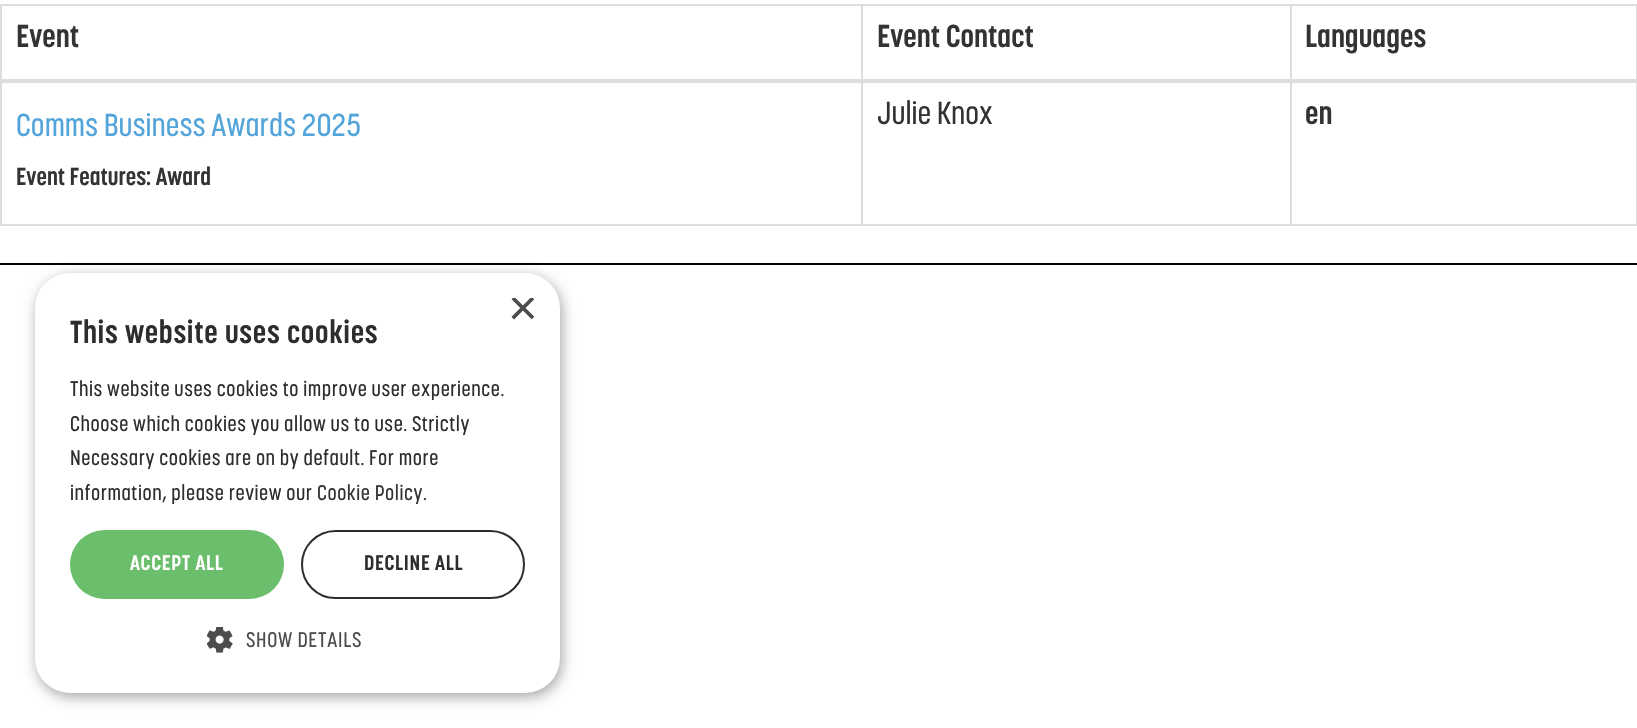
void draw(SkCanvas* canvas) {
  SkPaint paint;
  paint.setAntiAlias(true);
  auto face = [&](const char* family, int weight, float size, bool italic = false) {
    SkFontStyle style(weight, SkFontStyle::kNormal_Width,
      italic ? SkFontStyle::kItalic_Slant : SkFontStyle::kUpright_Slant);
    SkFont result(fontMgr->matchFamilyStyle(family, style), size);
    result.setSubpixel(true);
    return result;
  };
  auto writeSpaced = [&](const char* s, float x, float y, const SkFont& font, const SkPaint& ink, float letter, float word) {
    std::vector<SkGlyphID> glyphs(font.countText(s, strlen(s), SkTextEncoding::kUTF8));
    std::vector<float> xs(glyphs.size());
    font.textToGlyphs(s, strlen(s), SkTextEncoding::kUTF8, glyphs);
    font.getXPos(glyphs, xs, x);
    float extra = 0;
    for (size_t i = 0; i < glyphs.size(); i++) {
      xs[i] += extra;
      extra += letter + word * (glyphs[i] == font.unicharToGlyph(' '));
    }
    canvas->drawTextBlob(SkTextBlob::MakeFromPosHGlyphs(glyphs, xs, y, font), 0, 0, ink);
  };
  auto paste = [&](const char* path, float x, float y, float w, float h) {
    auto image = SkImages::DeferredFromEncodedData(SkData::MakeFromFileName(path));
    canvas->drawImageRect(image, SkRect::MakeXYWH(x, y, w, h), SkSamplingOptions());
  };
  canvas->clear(0xffffffff);
  {
    const struct { float x, y, w, h; SkColor color; } items[] = {
      {0, 4, 1637, 2, 0xffdddddd},
      {1636, 4, 1, 222, 0xffdddddd},
      {0, 224, 1637, 2, 0xffdddddd},
      {0, 4, 2, 222, 0xffdddddd},
      {861, 4, 2, 222, 0xffdddddd},
      {1290, 4, 2, 222, 0xffdddddd},
      {0, 79, 1637, 4, 0xffdddddd},
      {0, 263, 1637, 2, 0xff000000},
    };
    for (auto [x, y, w, h, color] : items) {
      paint.setColor(color);
      canvas->drawRect(SkRect::MakeXYWH(x, y, w, h), paint);
    }
  }
  paint.setColor(0x59000000);
  paint.setMaskFilter(SkMaskFilter::MakeBlur(kNormal_SkBlurStyle, 7));
  canvas->drawRoundRect(SkRect::MakeXYWH(37, 277, 525, 420), 35, 35, paint);
  paint.setMaskFilter(nullptr);
  paint.setColor(0xffffffff);
  canvas->drawRoundRect(SkRect::MakeXYWH(35, 273, 525, 420), 35, 35, paint);
  paint.setColor(0xff6bbe6b);
  canvas->drawRoundRect(SkRect::MakeXYWH(70, 530, 214, 69), 34.5f, 34.5f, paint);
  paint.setStroke(true);
  paint.setStrokeWidth(2);
  paint.setColor(0xff2d2d2d);
  canvas->drawRoundRect(SkRect::MakeXYWH(302, 531, 222, 67), 33.5f, 33.5f, paint);
  paste("img/1.png", 207, 627, 26, 26);
  auto f0 = face("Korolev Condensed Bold", 700, 31.5f);
  paint.setStroke(false);
  paint.setColor(0xff333333);
  {
    const struct { const char* s; float x, y; } items[] = {
      {"Event", 16, 47},
      {"Event Contact", 877, 47},
      {"Languages", 1305, 47},
    };
    for (auto [s, x, y] : items) {
      canvas->drawString(s, x, y, f0, paint);
    }
  }
  auto f1 = face("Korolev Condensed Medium", 500, 31.5f);
  paint.setColor(0xff52a4da);
  canvas->drawString("Comms Business Awards 2025", 16, 136, f1, paint);
  auto f2 = face("Korolev Condensed Bold", 700, 24.5f);
  paint.setColor(0xff333333);
  canvas->drawString("Event Features: Award", 16, 185, f2, paint);
  canvas->drawString("Julie Knox", 877, 124, f1, paint);
  canvas->drawString("en", 1305, 124, f0, paint);
  canvas->save();
  canvas->clipRect(SkRect::MakeXYWH(508, 298, 26, 26));
  auto f3 = face("Liberation Sans", 400, 51);
  paint.setColor(0xff4d4d4d);
  canvas->drawString("×", 508, 325, f3, paint);
  canvas->restore();
  paint.setColor(0xff2d2d2d);
  writeSpaced("This website uses cookies", 70, 343, f0, paint, 0.7f, 0);
  auto f4 = face("Korolev Condensed Medium", 500, 21);
  {
    const struct { const char* s; float x, y; } items[] = {
      {"This website uses cookies to improve user experience.", 70, 396},
      {"Choose which cookies you allow us to use. Strictly", 70, 431},
      {"Necessary cookies are on by default. For more", 70, 465},
      {"information, please review our", 70, 500},
    };
    for (auto [s, x, y] : items) {
      writeSpaced(s, x, y, f4, paint, 0.53f, 0);
    }
  }
  paint.setColor(0xff333333);
  writeSpaced("Cookie Policy.", 317, 500, f4, paint, 0.53f, 0);
  auto f5 = face("Korolev Condensed Bold", 700, 21);
  paint.setColor(0xffffffff);
  writeSpaced("ACCEPT ALL", 130, 570, f5, paint, 0.7f, 0);
  paint.setColor(0xff2d2d2d);
  writeSpaced("DECLINE ALL", 364, 570, f5, paint, 0.7f, 0);
  paint.setColor(0xff4d4d4d);
  writeSpaced("SHOW DETAILS", 246, 647, f4, paint, 0.7f, 0);
}
